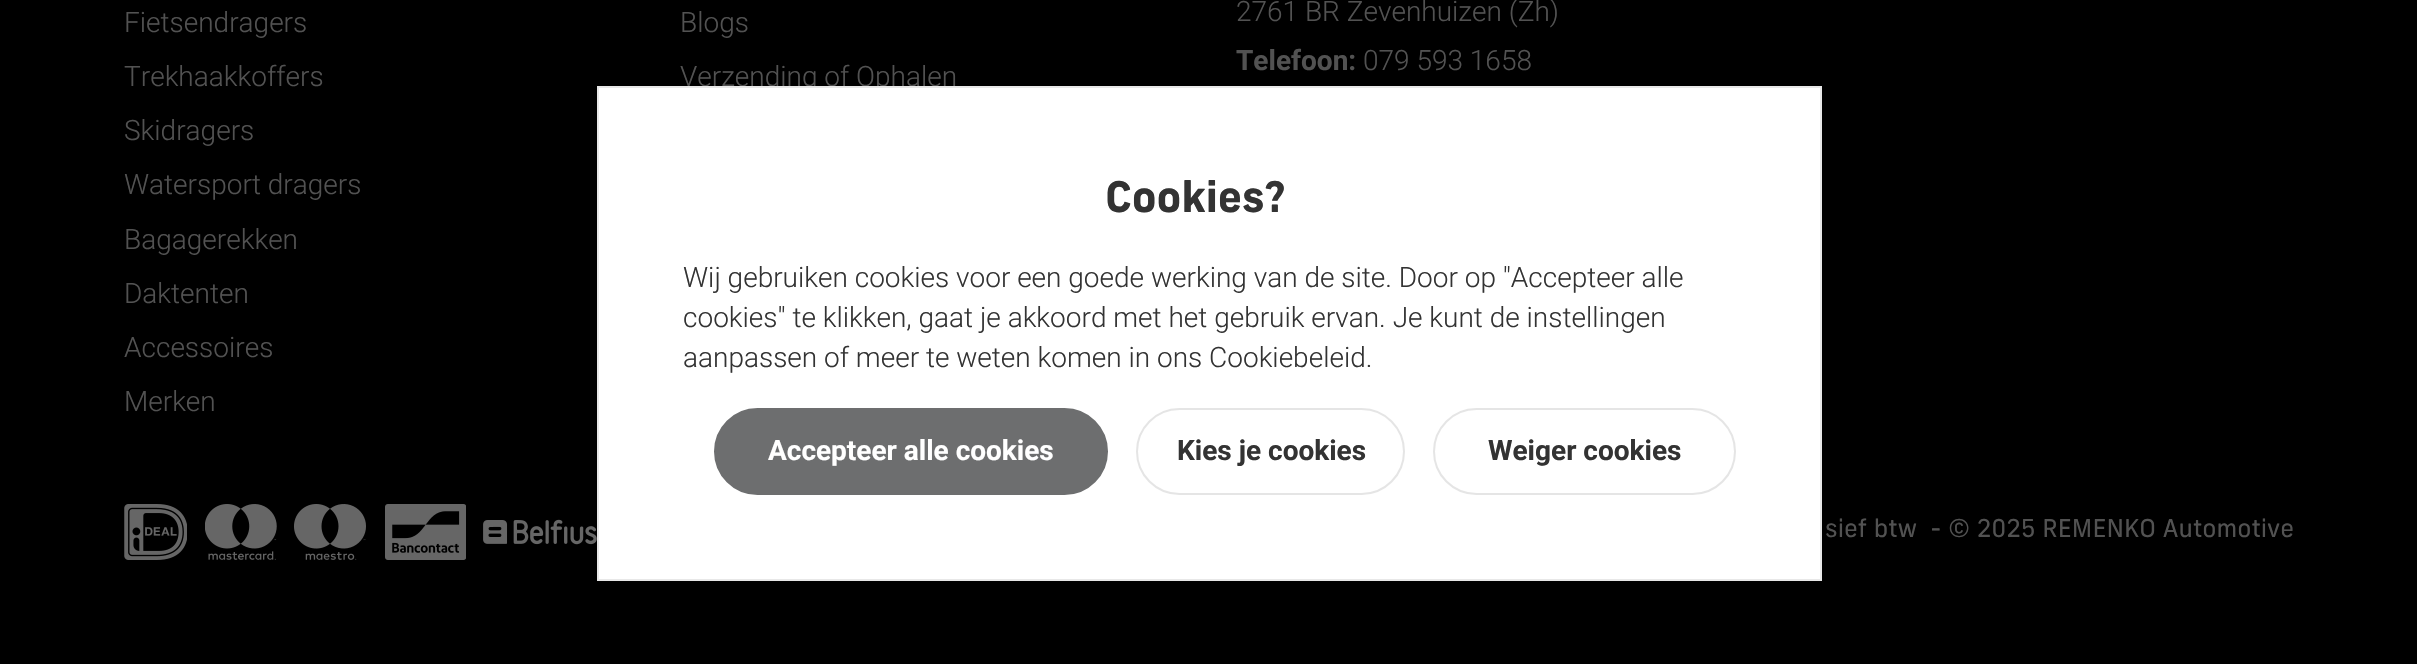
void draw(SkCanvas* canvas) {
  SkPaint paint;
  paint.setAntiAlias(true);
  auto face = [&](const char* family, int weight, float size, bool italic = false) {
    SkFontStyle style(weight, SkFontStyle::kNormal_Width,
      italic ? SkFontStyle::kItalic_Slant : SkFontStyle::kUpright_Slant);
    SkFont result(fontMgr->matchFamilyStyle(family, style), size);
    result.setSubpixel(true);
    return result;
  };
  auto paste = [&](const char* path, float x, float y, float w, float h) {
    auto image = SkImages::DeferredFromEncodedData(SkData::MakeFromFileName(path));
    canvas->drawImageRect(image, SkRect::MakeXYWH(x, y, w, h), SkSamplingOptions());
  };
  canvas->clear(0xff000000);
  paste("img/1.png", 124, 504, 63, 56);
  paste("img/2.png", 205, 504, 72, 56);
  paste("img/3.png", 294, 504, 72, 56);
  paste("img/4.png", 385, 504, 81, 56);
  paste("img/5.png", 483, 519, 114, 26);
  auto f0 = face("Roboto", 300, 28);
  paint.setColor(0xff525252);
  {
    const struct { const char* s; float x, y; } items[] = {
      {"Fietsendragers", 124, 32},
      {"Trekhaakkoffers", 124, 86},
      {"Skidragers", 124, 140},
      {"Watersport dragers", 124, 194},
      {"Bagagerekken", 124, 249},
      {"Daktenten", 124, 303},
      {"Accessoires", 124, 357},
      {"Merken", 124, 411},
      {"Blogs", 680, 32},
      {"Verzending of Ophalen", 680, 86},
      {"2761 BR Zevenhuizen (Zh)", 1236, 21},
    };
    for (auto [s, x, y] : items) {
      canvas->drawString(s, x, y, f0, paint);
    }
  }
  auto f1 = face("Roboto", 700, 28);
  canvas->drawString("Telefoon:", 1236, 70, f1, paint);
  canvas->drawString("079 593 1658", 1363, 70, f0, paint);
  auto f2 = face("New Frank", 400, 24.5f);
  canvas->drawString("sief btw", 1825, 537, f2, paint);
  canvas->drawString("- © 2025 REMENKO Automotive", 1930, 537, f2, paint);
  paint.setColor(0xffffffff);
  canvas->drawRect(SkRect::MakeXYWH(598, 87, 1223, 493), paint);
  paint.setStroke(true);
  paint.setStrokeWidth(2);
  paint.setColor(0xffe8e8e8);
  canvas->drawRect(SkRect::MakeXYWH(598, 87, 1223, 493), paint);
  auto f3 = face("New Frank", 700, 42);
  paint.setStroke(false);
  paint.setColor(0xff333333);
  canvas->drawString("Cookies?", 1105, 212, f3, paint);
  {
    const struct { const char* s; float x, y; } items[] = {
      {"Wij gebruiken cookies voor een goede werking van de site. Door op \"Accepteer alle", 683, 287},
      {"cookies\" te klikken, gaat je akkoord met het gebruik ervan. Je kunt de instellingen", 683, 327},
      {"aanpassen of meer te weten komen in ons Cookiebeleid.", 683, 367},
    };
    for (auto [s, x, y] : items) {
      canvas->drawString(s, x, y, f0, paint);
    }
  }
  paint.setColor(0xff6d6e6f);
  canvas->drawRoundRect(SkRect::MakeXYWH(715, 409, 392, 85), 42.5f, 42.5f, paint);
  paint.setStroke(true);
  canvas->drawRoundRect(SkRect::MakeXYWH(715, 409, 392, 85), 42.5f, 42.5f, paint);
  paint.setStroke(false);
  paint.setColor(0xffffffff);
  canvas->drawString("Accepteer alle cookies", 768, 460, f1, paint);
  paint.setStroke(true);
  paint.setColor(0xffe5e5e5);
  canvas->drawRoundRect(SkRect::MakeXYWH(1137, 409, 267, 85), 42.5f, 42.5f, paint);
  paint.setStroke(false);
  paint.setColor(0xff333333);
  canvas->drawString("Kies je cookies", 1177, 460, f1, paint);
  paint.setStroke(true);
  paint.setColor(0xffe5e5e5);
  canvas->drawRoundRect(SkRect::MakeXYWH(1434, 409, 301, 85), 42.5f, 42.5f, paint);
  paint.setStroke(false);
  paint.setColor(0xff333333);
  canvas->drawString("Weiger cookies", 1488, 460, f1, paint);
}
